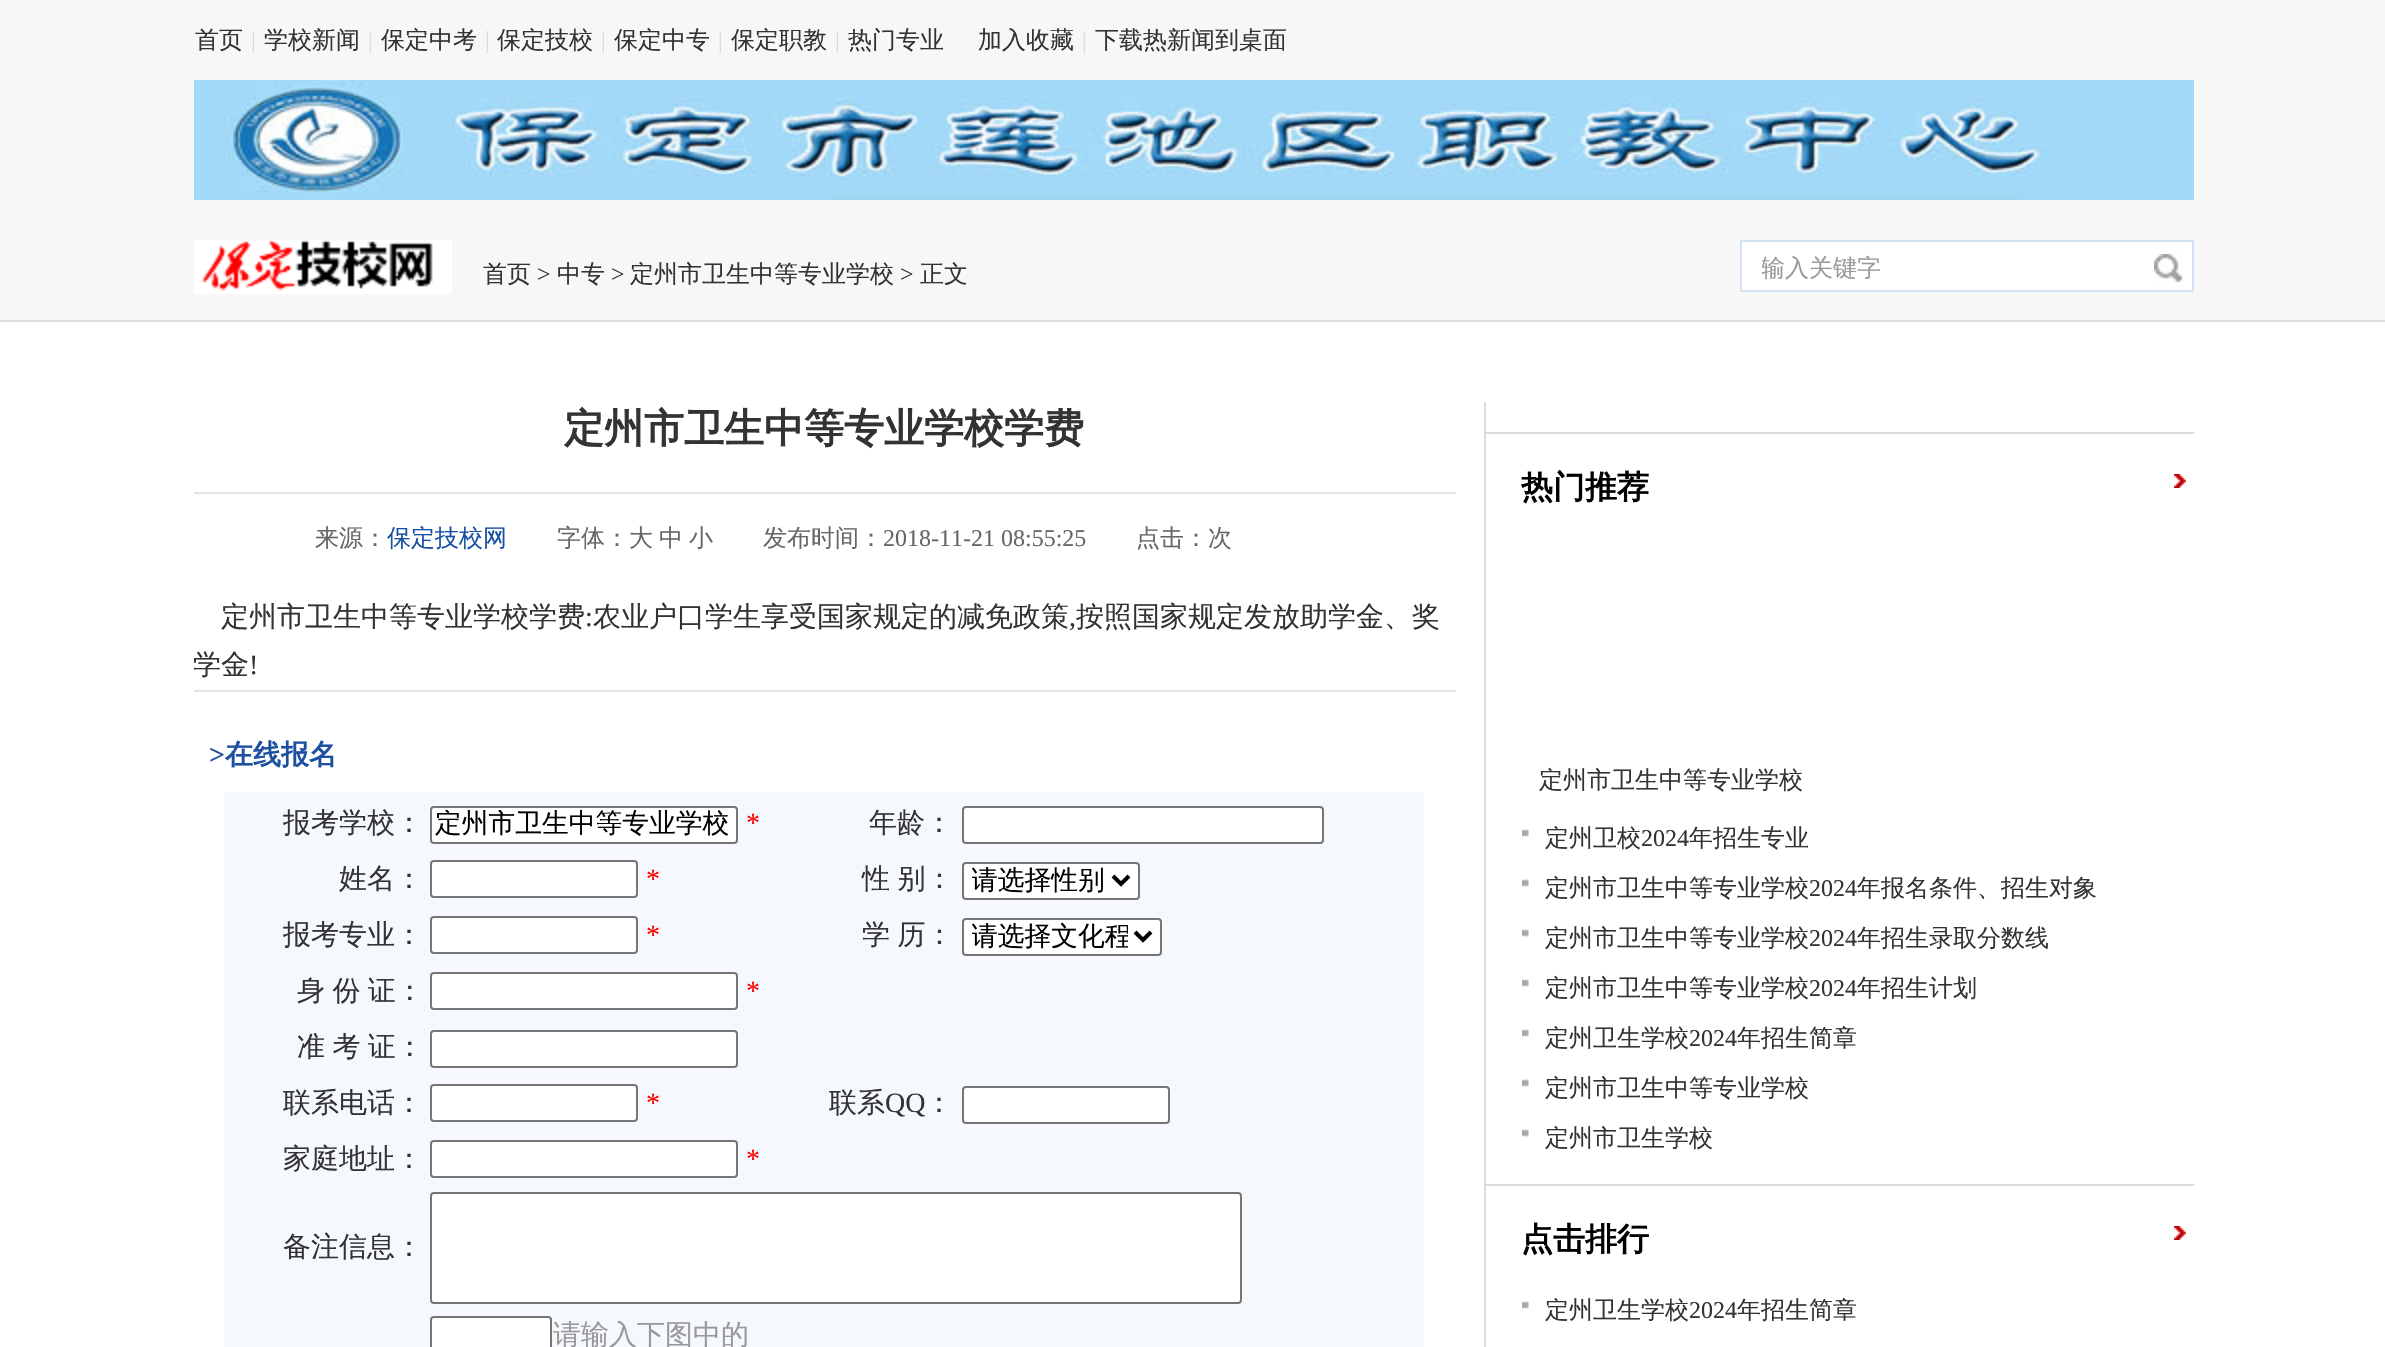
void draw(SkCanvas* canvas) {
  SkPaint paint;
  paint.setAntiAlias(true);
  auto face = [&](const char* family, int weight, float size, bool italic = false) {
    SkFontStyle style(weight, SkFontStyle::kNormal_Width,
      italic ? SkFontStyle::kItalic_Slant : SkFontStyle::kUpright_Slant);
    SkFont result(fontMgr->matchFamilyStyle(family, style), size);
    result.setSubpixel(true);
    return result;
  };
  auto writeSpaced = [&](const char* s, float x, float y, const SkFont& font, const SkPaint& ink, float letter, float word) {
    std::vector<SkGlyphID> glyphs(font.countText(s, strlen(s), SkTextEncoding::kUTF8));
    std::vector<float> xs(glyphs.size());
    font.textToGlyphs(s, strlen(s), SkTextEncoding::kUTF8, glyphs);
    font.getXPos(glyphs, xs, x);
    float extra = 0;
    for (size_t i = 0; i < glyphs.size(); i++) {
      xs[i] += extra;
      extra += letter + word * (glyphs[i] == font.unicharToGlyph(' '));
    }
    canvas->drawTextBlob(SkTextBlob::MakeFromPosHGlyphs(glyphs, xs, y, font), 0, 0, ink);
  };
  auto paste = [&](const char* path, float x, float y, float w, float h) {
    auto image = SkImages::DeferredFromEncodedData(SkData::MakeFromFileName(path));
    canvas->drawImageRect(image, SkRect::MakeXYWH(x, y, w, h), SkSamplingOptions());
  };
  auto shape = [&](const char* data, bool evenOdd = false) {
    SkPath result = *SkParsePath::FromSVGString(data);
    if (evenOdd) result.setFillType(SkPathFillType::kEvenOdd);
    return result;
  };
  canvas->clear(0xffffffff);
  paint.setColor(0xfff7f7f7);
  canvas->drawRect(SkRect::MakeXYWH(0, 0, 2385, 320), paint);
  paint.setColor(0xffdcdcdc);
  canvas->drawRect(SkRect::MakeXYWH(0, 320, 2385, 2), paint);
  paste("img/1.png", 194, 80, 2000, 120);
  paste("img/2.png", 194, 240, 258, 54);
  paint.setColor(0xffffffff);
  canvas->drawRect(SkRect::MakeXYWH(1741, 241, 452, 50), paint);
  paint.setStroke(true);
  paint.setStrokeWidth(2);
  paint.setColor(0xffd5e2f3);
  canvas->drawRect(SkRect::MakeXYWH(1741, 241, 452, 50), paint);
  paste("img/3.png", 2154, 254, 28, 28);
  paint.setStroke(false);
  {
    const struct { float x, y, w, h; SkColor color; } items[] = {
      {1484, 402, 2, 945, 0xffdcdcdc},
      {194, 492, 1262, 2, 0xffe4e4e4},
      {194, 690, 1262, 2, 0xffe4e4e4},
      {224, 792, 1200, 555, 0xfff5f8fd},
    };
    for (auto [x, y, w, h, color] : items) {
      paint.setColor(color);
      canvas->drawRect(SkRect::MakeXYWH(x, y, w, h), paint);
    }
  }
  paint.setColor(0xffffffff);
  canvas->drawRoundRect(SkRect::MakeXYWH(431, 807, 306, 36), 3, 3, paint);
  paint.setStroke(true);
  paint.setColor(0xff767676);
  canvas->drawRoundRect(SkRect::MakeXYWH(431, 807, 306, 36), 3, 3, paint);
  paint.setStroke(false);
  paint.setColor(0xffffffff);
  canvas->drawRoundRect(SkRect::MakeXYWH(963, 807, 360, 36), 3, 3, paint);
  paint.setStroke(true);
  paint.setColor(0xff767676);
  canvas->drawRoundRect(SkRect::MakeXYWH(963, 807, 360, 36), 3, 3, paint);
  paint.setStroke(false);
  paint.setColor(0xffffffff);
  canvas->drawRoundRect(SkRect::MakeXYWH(431, 861, 206, 36), 3, 3, paint);
  paint.setStroke(true);
  paint.setColor(0xff767676);
  canvas->drawRoundRect(SkRect::MakeXYWH(431, 861, 206, 36), 3, 3, paint);
  paint.setStroke(false);
  paint.setColor(0xffffffff);
  canvas->drawRoundRect(SkRect::MakeXYWH(963, 863, 176, 36), 3, 3, paint);
  paint.setStroke(true);
  paint.setColor(0xff767676);
  canvas->drawRoundRect(SkRect::MakeXYWH(963, 863, 176, 36), 3, 3, paint);
  paint.setStrokeWidth(4);
  paint.setColor(0xff000000);
  canvas->drawPath(shape("M1113 876L1121 884L1129 876"), paint);
  paint.setStroke(false);
  paint.setColor(0xffffffff);
  canvas->drawRoundRect(SkRect::MakeXYWH(431, 917, 206, 36), 3, 3, paint);
  paint.setStroke(true);
  paint.setStrokeWidth(2);
  paint.setColor(0xff767676);
  canvas->drawRoundRect(SkRect::MakeXYWH(431, 917, 206, 36), 3, 3, paint);
  paint.setStroke(false);
  paint.setColor(0xffffffff);
  canvas->drawRoundRect(SkRect::MakeXYWH(963, 919, 198, 36), 3, 3, paint);
  paint.setStroke(true);
  paint.setColor(0xff767676);
  canvas->drawRoundRect(SkRect::MakeXYWH(963, 919, 198, 36), 3, 3, paint);
  paint.setStrokeWidth(4);
  paint.setColor(0xff000000);
  canvas->drawPath(shape("M1135 932L1143 940L1151 932"), paint);
  paint.setStroke(false);
  paint.setColor(0xffffffff);
  canvas->drawRoundRect(SkRect::MakeXYWH(431, 973, 306, 36), 3, 3, paint);
  paint.setStroke(true);
  paint.setStrokeWidth(2);
  paint.setColor(0xff767676);
  canvas->drawRoundRect(SkRect::MakeXYWH(431, 973, 306, 36), 3, 3, paint);
  paint.setStroke(false);
  paint.setColor(0xffffffff);
  canvas->drawRoundRect(SkRect::MakeXYWH(431, 1031, 306, 36), 3, 3, paint);
  paint.setStroke(true);
  paint.setColor(0xff767676);
  canvas->drawRoundRect(SkRect::MakeXYWH(431, 1031, 306, 36), 3, 3, paint);
  paint.setStroke(false);
  paint.setColor(0xffffffff);
  canvas->drawRoundRect(SkRect::MakeXYWH(431, 1085, 206, 36), 3, 3, paint);
  paint.setStroke(true);
  paint.setColor(0xff767676);
  canvas->drawRoundRect(SkRect::MakeXYWH(431, 1085, 206, 36), 3, 3, paint);
  paint.setStroke(false);
  paint.setColor(0xffffffff);
  canvas->drawRoundRect(SkRect::MakeXYWH(963, 1087, 206, 36), 3, 3, paint);
  paint.setStroke(true);
  paint.setColor(0xff767676);
  canvas->drawRoundRect(SkRect::MakeXYWH(963, 1087, 206, 36), 3, 3, paint);
  paint.setStroke(false);
  paint.setColor(0xffffffff);
  canvas->drawRoundRect(SkRect::MakeXYWH(431, 1141, 306, 36), 3, 3, paint);
  paint.setStroke(true);
  paint.setColor(0xff767676);
  canvas->drawRoundRect(SkRect::MakeXYWH(431, 1141, 306, 36), 3, 3, paint);
  paint.setStroke(false);
  paint.setColor(0xffffffff);
  canvas->drawRoundRect(SkRect::MakeXYWH(431, 1193, 810, 110), 3, 3, paint);
  paint.setStroke(true);
  paint.setColor(0xff767676);
  canvas->drawRoundRect(SkRect::MakeXYWH(431, 1193, 810, 110), 3, 3, paint);
  paint.setStroke(false);
  paint.setColor(0xffffffff);
  canvas->drawRoundRect(SkRect::MakeXYWH(431, 1317, 120, 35), 3, 3, paint);
  paint.setStroke(true);
  paint.setColor(0xff767676);
  canvas->drawRoundRect(SkRect::MakeXYWH(431, 1317, 120, 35), 3, 3, paint);
  paint.setStroke(false);
  paint.setColor(0xffdbdbdb);
  canvas->drawRect(SkRect::MakeXYWH(1486, 432, 708, 2), paint);
  paste("img/4.png", 2174, 474, 12, 14);
  paste("img/5.png", 1522, 829, 7, 8);
  paste("img/5.png", 1522, 879, 7, 8);
  paste("img/5.png", 1522, 929, 7, 8);
  paste("img/5.png", 1522, 979, 7, 8);
  paste("img/5.png", 1522, 1029, 7, 8);
  paste("img/5.png", 1522, 1079, 7, 8);
  paste("img/5.png", 1522, 1129, 7, 8);
  canvas->drawRect(SkRect::MakeXYWH(1486, 1184, 708, 2), paint);
  paste("img/4.png", 2174, 1226, 12, 14);
  paste("img/5.png", 1522, 1301, 7, 8);
  auto f0 = face("WenQuanYi Zen Hei", 500, 24);
  paint.setColor(0xff333333);
  canvas->drawString("首页", 195, 48, f0, paint);
  auto f1 = face("Liberation Serif", 400, 24);
  paint.setColor(0xffdcdcdc);
  canvas->drawString("|", 251, 48, f1, paint);
  paint.setColor(0xff333333);
  canvas->drawString("学校新闻", 264, 48, f0, paint);
  paint.setColor(0xffdcdcdc);
  canvas->drawString("|", 368, 48, f1, paint);
  paint.setColor(0xff333333);
  canvas->drawString("保定中考", 381, 48, f0, paint);
  paint.setColor(0xffdcdcdc);
  canvas->drawString("|", 485, 48, f1, paint);
  paint.setColor(0xff333333);
  canvas->drawString("保定技校", 497, 48, f0, paint);
  paint.setColor(0xffdcdcdc);
  canvas->drawString("|", 601, 48, f1, paint);
  paint.setColor(0xff333333);
  canvas->drawString("保定中专", 614, 48, f0, paint);
  paint.setColor(0xffdcdcdc);
  canvas->drawString("|", 718, 48, f1, paint);
  paint.setColor(0xff333333);
  canvas->drawString("保定职教", 731, 48, f0, paint);
  paint.setColor(0xffdcdcdc);
  canvas->drawString("|", 835, 48, f1, paint);
  paint.setColor(0xff333333);
  canvas->drawString("热门专业", 848, 48, f0, paint);
  canvas->drawString("加入收藏", 978, 48, f0, paint);
  paint.setColor(0xffdcdcdc);
  canvas->drawString("|", 1082, 48, f1, paint);
  paint.setColor(0xff333333);
  canvas->drawString("下载热新闻到桌面", 1095, 48, f0, paint);
  canvas->drawString("首页", 483, 282, f0, paint);
  canvas->drawString(">", 537, 282, f1, paint);
  canvas->drawString("中专", 557, 282, f0, paint);
  canvas->drawString(">", 611, 282, f1, paint);
  canvas->drawString("定州市卫生中等专业学校", 630, 282, f0, paint);
  canvas->drawString(">", 900, 282, f1, paint);
  canvas->drawString("正文", 920, 282, f0, paint);
  canvas->save();
  canvas->clipRect(SkRect::MakeXYWH(1762, 254, 390, 30));
  paint.setColor(0xff999999);
  canvas->drawString("输入关键字", 1761, 276, f0, paint);
  canvas->restore();
  auto f2 = face("WenQuanYi Zen Hei", 700, 40);
  paint.setColor(0xff333333);
  canvas->drawString("定州市卫生中等专业学校学费", 564, 442, f2, paint);
  paint.setColor(0xff666666);
  canvas->drawString("来源：", 315, 546, f0, paint);
  paint.setColor(0xff174fa2);
  canvas->drawString("保定技校网", 387, 546, f0, paint);
  paint.setColor(0xff666666);
  {
    const struct { const char* s; float x, y; } items[] = {
      {"字体：大", 557, 546},
      {"中", 659, 546},
      {"小", 689, 546},
      {"发布时间：", 763, 546},
    };
    for (auto [s, x, y] : items) {
      canvas->drawString(s, x, y, f0, paint);
    }
  }
  canvas->drawString("2018-11-21 08:55:25", 883, 546, f1, paint);
  canvas->drawString("点击：次", 1136, 546, f0, paint);
  auto f3 = face("WenQuanYi Zen Hei", 500, 28);
  paint.setColor(0xff333333);
  canvas->drawString("定州市卫生中等专业学校学费", 221, 626, f3, paint);
  auto f4 = face("Liberation Serif", 400, 28);
  canvas->drawString(":", 585, 626, f4, paint);
  canvas->drawString("农业户口学生享受国家规定的减免政策", 593, 626, f3, paint);
  canvas->drawString(",", 1069, 626, f4, paint);
  canvas->drawString("按照国家规定发放助学金、奖", 1076, 626, f3, paint);
  canvas->drawString("学金", 193, 674, f3, paint);
  canvas->drawString("!", 249, 674, f4, paint);
  auto f5 = face("Liberation Serif", 700, 28);
  paint.setColor(0xff1e50a2);
  canvas->drawString(">", 209, 764, f5, paint);
  auto f6 = face("WenQuanYi Zen Hei", 700, 28);
  canvas->drawString("在线报名", 225, 764, f6, paint);
  paint.setColor(0xff333333);
  canvas->drawString("报考学校：", 283, 832, f3, paint);
  canvas->save();
  canvas->clipRect(SkRect::MakeXYWH(434, 810, 300, 30));
  auto f7 = face("WenQuanYi Zen Hei", 500, 26.75f);
  paint.setColor(0xff000000);
  canvas->drawString("定州市卫生中等专业学校", 435, 832, f7, paint);
  canvas->restore();
  paint.setColor(0xffff0000);
  canvas->drawString("*", 746, 832, f4, paint);
  paint.setColor(0xff333333);
  canvas->drawString("年龄：", 869, 832, f3, paint);
  canvas->drawString("姓名：", 339, 888, f3, paint);
  paint.setColor(0xffff0000);
  canvas->drawString("*", 646, 888, f4, paint);
  paint.setColor(0xff333333);
  writeSpaced("性 别：", 862, 888, f3, paint, 0, -1);
  canvas->save();
  canvas->clipRect(SkRect::MakeXYWH(972, 864, 134, 34));
  paint.setColor(0xff000000);
  canvas->drawString("请选择性别", 971, 889, f7, paint);
  canvas->restore();
  paint.setColor(0xff333333);
  canvas->drawString("报考专业：", 283, 944, f3, paint);
  paint.setColor(0xffff0000);
  canvas->drawString("*", 646, 944, f4, paint);
  paint.setColor(0xff333333);
  writeSpaced("学 历：", 862, 944, f3, paint, 0, -1);
  canvas->save();
  canvas->clipRect(SkRect::MakeXYWH(972, 920, 156, 34));
  paint.setColor(0xff000000);
  canvas->drawString("请选择文化程", 971, 945, f7, paint);
  canvas->restore();
  paint.setColor(0xff333333);
  writeSpaced("身 份 证：", 297, 1000, f3, paint, 0, -1);
  paint.setColor(0xffff0000);
  canvas->drawString("*", 746, 1000, f4, paint);
  paint.setColor(0xff333333);
  writeSpaced("准 考 证：", 297, 1056, f3, paint, 0, -1);
  canvas->drawString("联系电话：", 283, 1112, f3, paint);
  paint.setColor(0xffff0000);
  canvas->drawString("*", 646, 1112, f4, paint);
  paint.setColor(0xff333333);
  canvas->drawString("联系", 829, 1112, f3, paint);
  canvas->drawString("QQ", 885, 1112, f4, paint);
  canvas->drawString("：", 925, 1112, f3, paint);
  canvas->drawString("家庭地址：", 283, 1168, f3, paint);
  paint.setColor(0xffff0000);
  canvas->drawString("*", 746, 1168, f4, paint);
  paint.setColor(0xff333333);
  canvas->drawString("备注信息：", 283, 1256, f3, paint);
  paint.setColor(0xff999999);
  canvas->drawString("请输入下图中的", 553, 1344, f3, paint);
  auto f8 = face("WenQuanYi Zen Hei", 700, 32);
  paint.setColor(0xff000000);
  canvas->drawString("热门推荐", 1521, 498, f8, paint);
  paint.setColor(0xff333333);
  canvas->drawString("定州市卫生中等专业学校", 1539, 788, f0, paint);
  canvas->drawString("定州卫校", 1545, 846, f0, paint);
  canvas->drawString("2024", 1641, 846, f1, paint);
  canvas->drawString("年招生专业", 1689, 846, f0, paint);
  canvas->drawString("定州市卫生中等专业学校", 1545, 896, f0, paint);
  canvas->drawString("2024", 1809, 896, f1, paint);
  canvas->drawString("年报名条件、招生对象", 1857, 896, f0, paint);
  canvas->drawString("定州市卫生中等专业学校", 1545, 946, f0, paint);
  canvas->drawString("2024", 1809, 946, f1, paint);
  canvas->drawString("年招生录取分数线", 1857, 946, f0, paint);
  canvas->drawString("定州市卫生中等专业学校", 1545, 996, f0, paint);
  canvas->drawString("2024", 1809, 996, f1, paint);
  canvas->drawString("年招生计划", 1857, 996, f0, paint);
  canvas->drawString("定州卫生学校", 1545, 1046, f0, paint);
  canvas->drawString("2024", 1689, 1046, f1, paint);
  {
    const struct { const char* s; float x, y; } items[] = {
      {"年招生简章", 1737, 1046},
      {"定州市卫生中等专业学校", 1545, 1096},
      {"定州市卫生学校", 1545, 1146},
    };
    for (auto [s, x, y] : items) {
      canvas->drawString(s, x, y, f0, paint);
    }
  }
  paint.setColor(0xff000000);
  canvas->drawString("点击排行", 1521, 1250, f8, paint);
  paint.setColor(0xff333333);
  canvas->drawString("定州卫生学校", 1545, 1318, f0, paint);
  canvas->drawString("2024", 1689, 1318, f1, paint);
  canvas->drawString("年招生简章", 1737, 1318, f0, paint);
}
